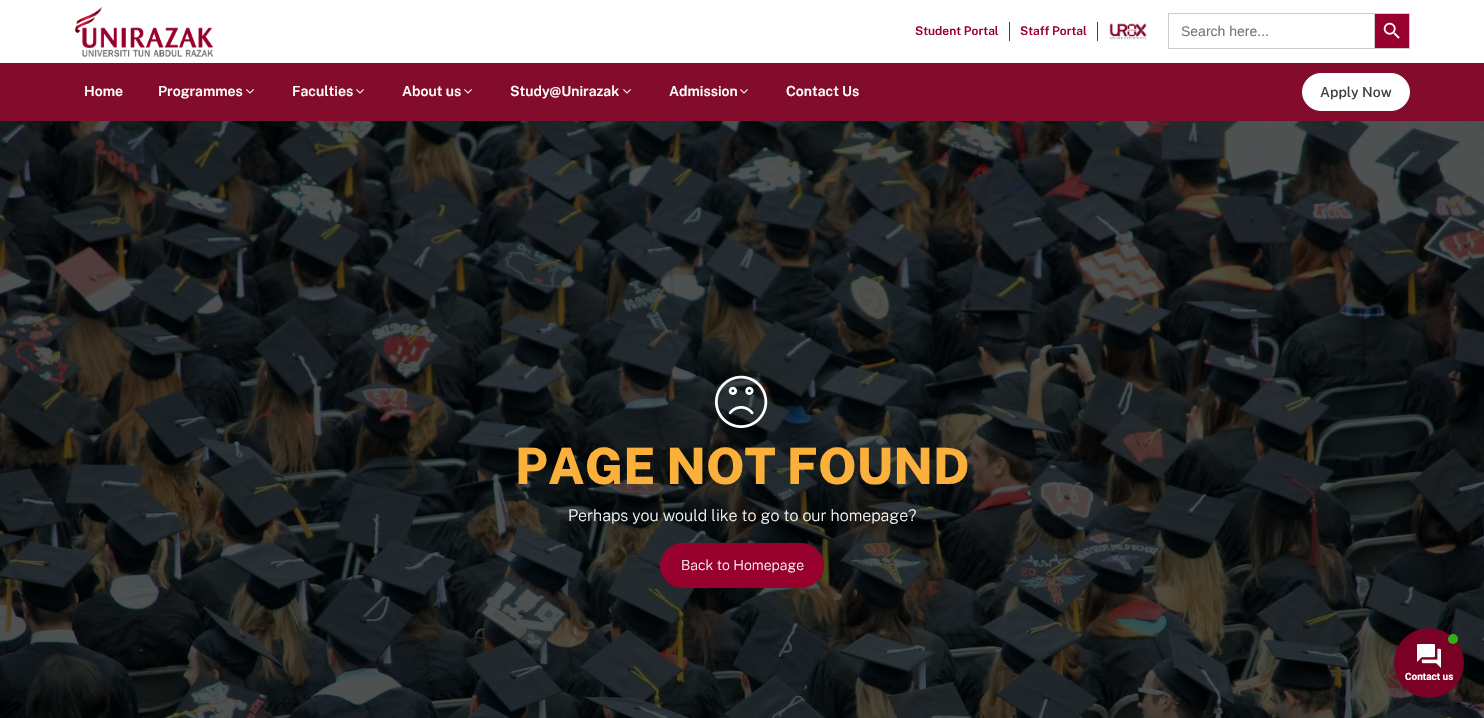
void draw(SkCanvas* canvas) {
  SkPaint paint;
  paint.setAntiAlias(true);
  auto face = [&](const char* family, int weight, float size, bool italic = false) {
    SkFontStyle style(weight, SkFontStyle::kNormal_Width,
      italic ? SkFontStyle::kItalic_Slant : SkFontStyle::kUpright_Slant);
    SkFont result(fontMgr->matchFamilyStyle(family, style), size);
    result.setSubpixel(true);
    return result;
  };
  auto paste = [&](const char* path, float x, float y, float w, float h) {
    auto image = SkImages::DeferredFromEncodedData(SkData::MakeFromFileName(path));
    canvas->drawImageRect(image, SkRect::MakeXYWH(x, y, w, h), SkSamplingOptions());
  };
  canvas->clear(0xffffffff);
  paste("img/1.png", 74, 7, 140, 50);
  paint.setColor(0xff404040);
  canvas->drawRect(SkRect::MakeXYWH(1009, 22, 1, 19), paint);
  canvas->drawRect(SkRect::MakeXYWH(1097, 22, 1, 19), paint);
  paste("img/2.png", 1109, 23, 38, 17);
  {
    const struct { float x, y, w, h; SkColor color; } items[] = {
      {1168, 13, 206, 1, 0xffcccccc},
      {1168, 48, 206, 1, 0xffcccccc},
      {1168, 13, 1, 36, 0xffcccccc},
    };
    for (auto [x, y, w, h, color] : items) {
      paint.setColor(color);
      canvas->drawRect(SkRect::MakeXYWH(x, y, w, h), paint);
    }
  }
  paint.setColor(0xff98002e);
  canvas->drawRect(SkRect::MakeXYWH(1374.5f, 13.5f, 35, 35), paint);
  paint.setStroke(true);
  paint.setStrokeWidth(1);
  paint.setColor(0xffcccccc);
  canvas->drawRect(SkRect::MakeXYWH(1374.5f, 13.5f, 35, 35), paint);
  paste("img/3.png", 1383, 22, 17, 17);
  paint.setStroke(false);
  paint.setColor(0xff830c2c);
  canvas->drawRect(SkRect::MakeXYWH(0, 63, 1484, 58), paint);
  paste("img/4.png", 246, 89, 8, 5);
  paste("img/4.png", 356, 89, 8, 5);
  paste("img/4.png", 464, 89, 8, 5);
  paste("img/4.png", 623, 89, 8, 5);
  paste("img/4.png", 740, 89, 8, 5);
  paint.setColor(0xffffffff);
  canvas->drawRoundRect(SkRect::MakeXYWH(1302.5f, 73.5f, 107, 37), 18.5f, 18.5f, paint);
  paint.setStroke(true);
  canvas->drawRoundRect(SkRect::MakeXYWH(1302.5f, 73.5f, 107, 37), 18.5f, 18.5f, paint);
  paste("img/5.png", 0, 121, 1484, 597);
  paste("img/6.png", 715, 375, 53, 53);
  paint.setStroke(false);
  paint.setColor(0xff98002e);
  canvas->drawRoundRect(SkRect::MakeXYWH(660.5f, 543.5f, 163, 44), 22, 22, paint);
  paint.setStroke(true);
  canvas->drawRoundRect(SkRect::MakeXYWH(660.5f, 543.5f, 163, 44), 22, 22, paint);
  paint.setStroke(false);
  paint.setColor(0xff7b0025);
  canvas->drawCircle(1429, 663, 35, paint);
  paint.setColor(0xff35ac19);
  canvas->drawCircle(1453, 639, 5, paint);
  paste("img/7.png", 1417, 644, 24, 24);
  auto f0 = face("Public Sans", 600, 12);
  paint.setColor(0xff98002e);
  canvas->drawString("Student Portal", 915, 35, f0, paint);
  canvas->drawString("Staff Portal", 1020, 35, f0, paint);
  auto f1 = face("Liberation Sans", 400, 14);
  paint.setColor(0xff757575);
  canvas->drawString("Search here...", 1181, 36, f1, paint);
  auto f2 = face("Public Sans", 600, 14);
  paint.setColor(0xffffffff);
  {
    const struct { const char* s; float x, y; } items[] = {
      {"Home", 84, 96},
      {"Programmes", 158, 96},
      {"Faculties", 292, 96},
      {"About us", 402, 96},
      {"Study@Unirazak", 510, 96},
      {"Admission", 669, 96},
      {"Contact Us", 786, 96},
    };
    for (auto [s, x, y] : items) {
      canvas->drawString(s, x, y, f2, paint);
    }
  }
  auto f3 = face("Public Sans", 500, 14);
  paint.setColor(0xff404040);
  canvas->drawString("Apply Now", 1320, 97, f3, paint);
  auto f4 = face("Public Sans", 800, 50);
  paint.setColor(0xfffbb03b);
  canvas->drawString("PAGE NOT FOUND", 515, 484, f4, paint);
  auto f5 = face("Public Sans", 200, 16);
  paint.setColor(0xffffffff);
  canvas->drawString("Perhaps you would like to go to our homepage?", 568, 521, f5, paint);
  auto f6 = face("Public Sans", 200, 14);
  canvas->drawString("Back to Homepage", 681, 570, f6, paint);
  auto f7 = face("Roboto", 700, 10);
  canvas->drawString("Contact us", 1405, 680, f7, paint);
}
